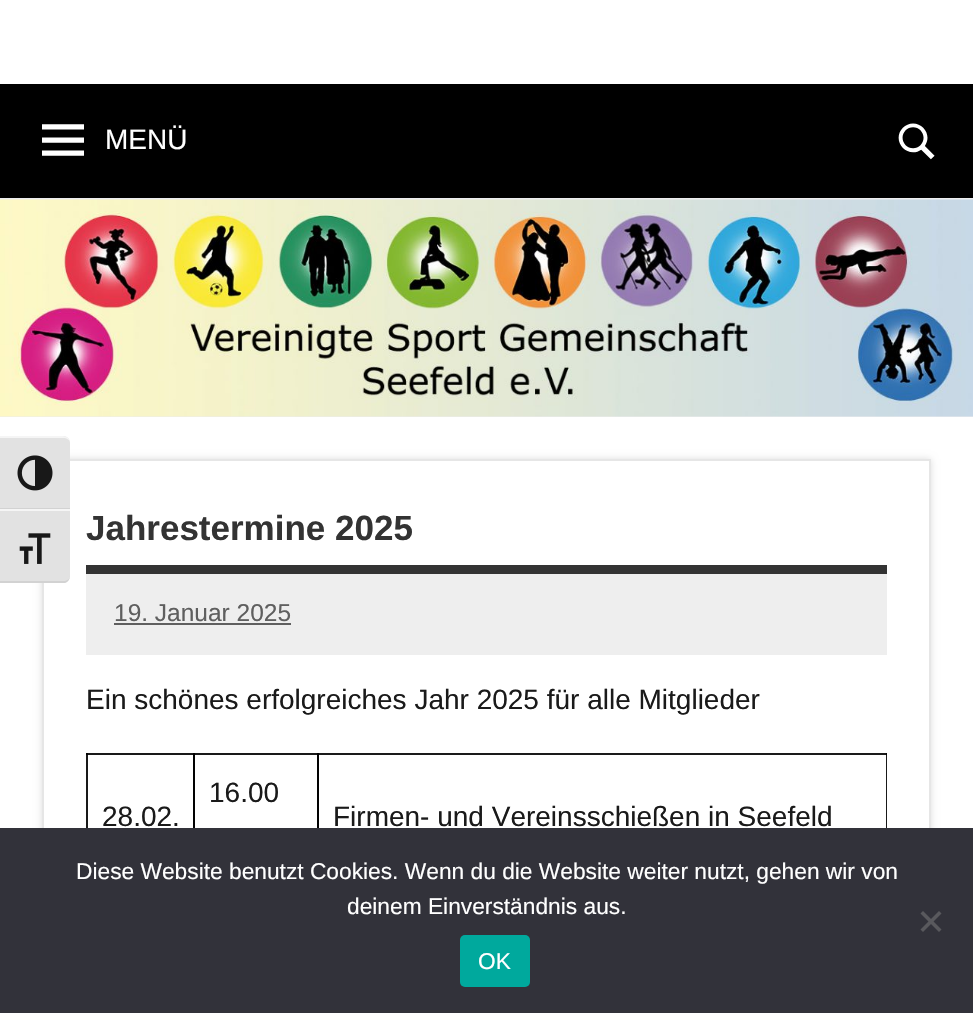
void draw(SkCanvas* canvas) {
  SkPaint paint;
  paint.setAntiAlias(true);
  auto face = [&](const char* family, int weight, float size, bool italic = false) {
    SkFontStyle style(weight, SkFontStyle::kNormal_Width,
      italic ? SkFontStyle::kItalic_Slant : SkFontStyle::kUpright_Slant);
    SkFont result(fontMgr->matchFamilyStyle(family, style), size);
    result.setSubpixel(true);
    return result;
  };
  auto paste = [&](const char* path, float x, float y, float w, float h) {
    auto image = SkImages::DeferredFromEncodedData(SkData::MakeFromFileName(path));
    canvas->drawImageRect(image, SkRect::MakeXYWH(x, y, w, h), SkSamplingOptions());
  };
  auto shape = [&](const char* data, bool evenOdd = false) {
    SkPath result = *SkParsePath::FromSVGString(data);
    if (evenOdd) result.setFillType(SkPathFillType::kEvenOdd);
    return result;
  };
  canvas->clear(0xffededef);
  {
    const struct { float x, y, w, h; SkColor color; } items[] = {
      {0, 417, 973, 411, 0xffffffff},
      {86, 753, 2, 75, 0xff191919},
      {86, 753, 108, 2, 0xff191919},
      {86, 753, 2, 2, 0xff020202},
      {193, 753, 2, 75, 0xff020202},
      {193, 753, 126, 2, 0xff191919},
      {193, 753, 2, 2, 0xff000000},
      {317, 753, 2, 75, 0xff020202},
      {886, 753, 1, 75, 0xff191919},
    };
    for (auto [x, y, w, h, color] : items) {
      paint.setColor(color);
      canvas->drawRect(SkRect::MakeXYWH(x, y, w, h), paint);
    }
  }
  canvas->save();
  canvas->clipPath(shape("M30 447H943V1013H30ZM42 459H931V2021H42Z", true), true);
  paint.setColor(0xffdddddd);
  paint.setMaskFilter(SkMaskFilter::MakeBlur(kNormal_SkBlurStyle, 3.5f));
  canvas->drawRect(SkRect::MakeXYWH(42, 459, 889, 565), paint);
  paint.setMaskFilter(nullptr);
  canvas->restore();
  paint.setStroke(true);
  paint.setStrokeWidth(2);
  paint.setColor(0xffe6e6e6);
  canvas->drawRect(SkRect::MakeXYWH(43, 460, 887, 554), paint);
  paint.setStroke(false);
  paint.setColor(0xffe2e2e2);
  canvas->drawPath(shape("M0 436H63C67 436 70 439 70 443V509H0Z"), paint);
  paint.setColor(0xfff5f5f5);
  canvas->drawPath(shape("M0 438H63C67 438 70 440 70 443C70 439 67 436 63 436H0Z"), paint);
  paint.setColor(0xffd2d2d2);
  canvas->drawRect(SkRect::MakeXYWH(0, 508, 70, 1), paint);
  paste("img/1.png", 17, 455, 36, 36);
  paint.setColor(0xffe2e2e2);
  canvas->drawPath(shape("M0 509H70V576C70 580 67 583 63 583H0Z"), paint);
  paint.setColor(0xfff5f5f5);
  canvas->drawRect(SkRect::MakeXYWH(0, 509, 70, 2), paint);
  paint.setColor(0xffd2d2d2);
  canvas->drawPath(shape("M65 583C68 582 70 579 70 576C70 579 67 581 63 581H0V583Z"), paint);
  paste("img/2.png", 19, 533, 32, 31);
  paint.setColor(0xffffffff);
  canvas->drawRect(SkRect::MakeXYWH(0, 0, 973, 84), paint);
  paint.setColor(0xff000000);
  canvas->drawRect(SkRect::MakeXYWH(0, 84, 973, 114), paint);
  paste("img/3.png", 42, 124, 42, 32);
  paste("img/4.png", 898, 123, 37, 37);
  paste("img/5.png", 0, 199, 973, 218);
  {
    const struct { float x, y, w, h; SkColor color; } items[] = {
      {86, 565, 801, 9, 0xff333333},
      {86, 574, 801, 81, 0xffeeeeee},
      {114, 623, 177, 2, 0xff5f5f5f},
      {317, 753, 570, 2, 0xff1a1a1a},
      {317, 753, 2, 2, 0xff000000},
      {886, 753, 1, 2, 0xff030303},
      {0, 828, 973, 185, 0xff32323a},
    };
    for (auto [x, y, w, h, color] : items) {
      paint.setColor(color);
      canvas->drawRect(SkRect::MakeXYWH(x, y, w, h), paint);
    }
  }
  paint.setColor(0xff59595d);
  canvas->drawPath(shape("M939 911L941.5 913.5L923 932L920.5 929.5Z"), paint);
  canvas->drawPath(shape("M920.5 913.5L923 911L941.5 929.5L939 932Z"), paint);
  paint.setColor(0xff00a99d);
  canvas->drawRoundRect(SkRect::MakeXYWH(460, 935, 70, 52), 5, 5, paint);
  auto f0 = face("Liberation Sans", 400, 28);
  paint.setColor(0xffffffff);
  canvas->drawString("MENÜ", 105, 149, f0, paint);
  auto f1 = face("Liberation Sans", 700, 35);
  paint.setColor(0xff333333);
  canvas->drawString("Jahrestermine 2025", 86, 540, f1, paint);
  auto f2 = face("Liberation Sans", 400, 24.5f);
  paint.setColor(0xff5f5f5f);
  canvas->drawString("19. Januar 2025", 114, 621, f2, paint);
  paint.setColor(0xff1a1a1a);
  {
    const struct { const char* s; float x, y; } items[] = {
      {"Ein schönes erfolgreiches Jahr 2025 für alle Mitglieder", 86, 709},
      {"16.00", 209, 802},
      {"28.02.", 102, 826},
      {"Firmen- und Vereinsschießen in Seefeld", 333, 826},
    };
    for (auto [s, x, y] : items) {
      canvas->drawString(s, x, y, f0, paint);
    }
  }
  auto f3 = face("Liberation Sans", 400, 22.75f);
  paint.setColor(0xffffffff);
  {
    const struct { const char* s; float x, y; } items[] = {
      {"Diese Website benutzt Cookies. Wenn du die Website weiter nutzt, gehen wir von", 76, 879},
      {"deinem Einverständnis aus.", 347, 914},
      {"OK", 478, 969},
    };
    for (auto [s, x, y] : items) {
      canvas->drawString(s, x, y, f3, paint);
    }
  }
}
